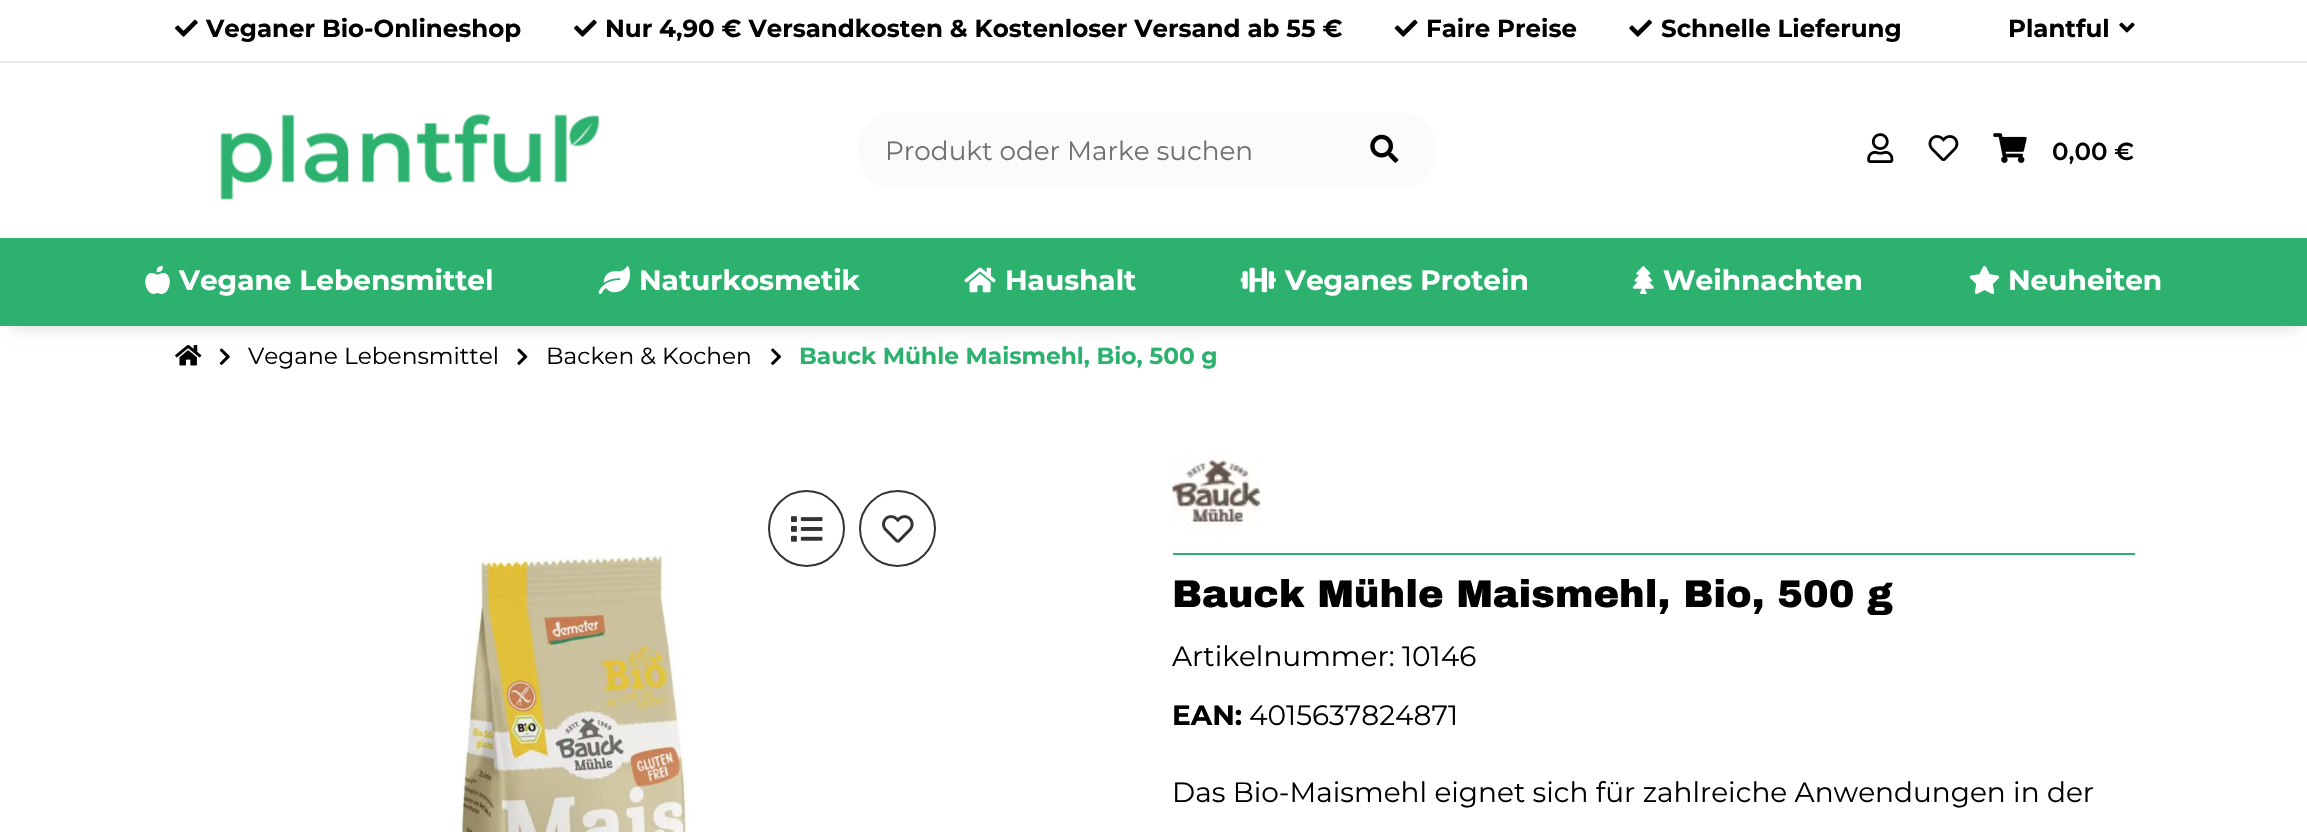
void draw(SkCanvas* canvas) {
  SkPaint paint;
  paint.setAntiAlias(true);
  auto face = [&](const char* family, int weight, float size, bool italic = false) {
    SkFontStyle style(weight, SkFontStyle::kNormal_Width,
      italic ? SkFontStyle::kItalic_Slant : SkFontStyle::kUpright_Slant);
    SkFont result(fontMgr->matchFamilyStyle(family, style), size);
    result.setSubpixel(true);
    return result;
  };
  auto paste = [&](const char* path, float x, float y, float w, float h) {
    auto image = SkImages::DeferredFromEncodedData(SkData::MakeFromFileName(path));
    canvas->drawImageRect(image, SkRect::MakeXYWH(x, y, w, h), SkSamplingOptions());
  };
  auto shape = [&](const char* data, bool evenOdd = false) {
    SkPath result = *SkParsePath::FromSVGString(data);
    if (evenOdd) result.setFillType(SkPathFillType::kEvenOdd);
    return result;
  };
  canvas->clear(0xffffffff);
  paint.setColor(0xffebebeb);
  canvas->drawRect(SkRect::MakeXYWH(0, 61, 2307, 2), paint);
  paste("img/1.png", 175, 19, 23, 18);
  paste("img/1.png", 574, 19, 23, 18);
  paste("img/2.png", 1394, 19, 24, 18);
  paste("img/3.png", 1629, 19, 23, 18);
  paste("img/4.png", 2119, 22, 16, 11);
  paste("img/5.png", 220, 113, 380, 87);
  paint.setColor(0xfffbfbfb);
  canvas->drawPath(shape("M893 113H1334V188H893C874 188 859 173 859 154V147C859 128 874 113 893 113Z"), paint);
  paint.setStroke(true);
  paint.setStrokeWidth(2);
  canvas->drawPath(shape("M893 113H1334V188H893C874 188 859 173 859 154V147C859 128 874 113 893 113Z"), paint);
  paint.setStroke(false);
  canvas->drawPath(shape("M1334 112H1400C1419.5 112 1435 127.5 1435 147V154C1435 173.5 1419.5 189 1400 189H1334Z"), paint);
  paste("img/6.png", 1370, 134, 29, 29);
  paste("img/7.png", 1867, 133, 27, 30);
  paste("img/8.png", 1928, 135, 31, 27);
  paste("img/9.png", 1993, 133, 34, 30);
  paint.setColor(0xff2cb16e);
  canvas->drawRect(SkRect::MakeXYWH(0, 238, 2307, 88), paint);
  paste("img/16.png", 175, 345, 27, 21);
  paste("img/17.png", 219, 348, 11, 17);
  paste("img/18.png", 517, 348, 11, 17);
  paste("img/19.png", 771, 348, 11, 17);
  canvas->save();
  canvas->clipPath(shape("M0 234H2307V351H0ZM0 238H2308V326H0Z", true), true);
  paint.setColor(0x29000000);
  paint.setMaskFilter(SkMaskFilter::MakeBlur(kNormal_SkBlurStyle, 8));
  canvas->drawRect(SkRect::MakeXYWH(11, 259, 2287, 67), paint);
  paint.setMaskFilter(nullptr);
  canvas->restore();
  paint.setColor(0xff2cb16e);
  canvas->drawRect(SkRect::MakeXYWH(93, 325, 2123, 1), paint);
  paste("img/10.png", 145, 266, 25, 28);
  paste("img/11.png", 598, 266, 33, 28);
  paste("img/12.png", 964, 267, 32, 26);
  paste("img/13.png", 1240, 267, 36, 26);
  paste("img/14.png", 1632, 266, 22, 28);
  paste("img/15.png", 1969, 266, 31, 28);
  paint.setStroke(true);
  paint.setColor(0xff333333);
  canvas->drawCircle(806.5f, 528.5f, 37.5f, paint);
  paste("img/20.png", 791, 516, 32, 26);
  canvas->drawCircle(897.5f, 528.5f, 37.5f, paint);
  paste("img/21.png", 882, 515, 32, 28);
  paste("img/22.png", 461, 554, 228, 278);
  paint.setStroke(false);
  paint.setColor(0xff2cb16e);
  canvas->drawRect(SkRect::MakeXYWH(1173, 553, 962, 2), paint);
  paste("img/23.png", 1172, 455, 88, 77);
  auto f0 = face("Montserrat", 700, 24.5f);
  paint.setColor(0xff000000);
  {
    const struct { const char* s; float x, y; } items[] = {
      {"Veganer Bio-Onlineshop", 206, 37},
      {"Nur 4,90 € Versandkosten & Kostenloser Versand ab 55 €", 605, 37},
      {"Faire Preise", 1426, 37},
      {"Schnelle Lieferung", 1661, 37},
      {"Plantful", 2008, 37},
    };
    for (auto [s, x, y] : items) {
      canvas->drawString(s, x, y, f0, paint);
    }
  }
  auto f1 = face("Montserrat", 400, 26.25f);
  paint.setColor(0xff707070);
  canvas->drawString("Produkt oder Marke suchen", 885, 160, f1, paint);
  auto f2 = face("Montserrat", 600, 24.5f);
  paint.setColor(0xff000000);
  canvas->drawString("0,00 €", 2052, 160, f2, paint);
  auto f3 = face("Montserrat", 700, 28);
  paint.setColor(0xffffffff);
  {
    const struct { const char* s; float x, y; } items[] = {
      {"Vegane Lebensmittel", 179, 290},
      {"Naturkosmetik", 639, 290},
      {"Haushalt", 1005, 290},
      {"Veganes Protein", 1285, 290},
      {"Weihnachten", 1663, 290},
      {"Neuheiten", 2008, 290},
    };
    for (auto [s, x, y] : items) {
      canvas->drawString(s, x, y, f3, paint);
    }
  }
  auto f4 = face("Montserrat", 400, 23.3f);
  paint.setColor(0xff000000);
  canvas->drawString("Vegane Lebensmittel", 248, 364, f4, paint);
  canvas->drawString("Backen & Kochen", 546, 364, f4, paint);
  auto f5 = face("Montserrat", 700, 23.3f);
  paint.setColor(0xff2cb16e);
  canvas->drawString("Bauck Mühle Maismehl, Bio, 500 g", 799, 364, f5, paint);
  auto f6 = face("Archivo Black", 400, 38.5f);
  paint.setColor(0xff000000);
  canvas->drawString("Bauck Mühle Maismehl, Bio, 500 g", 1172, 607, f6, paint);
  auto f7 = face("Montserrat", 400, 28);
  canvas->drawString("Artikelnummer: 10146", 1172, 666, f7, paint);
  canvas->drawString("EAN:", 1172, 725, f3, paint);
  canvas->drawString("4015637824871", 1249, 725, f7, paint);
  canvas->drawString("Das Bio-Maismehl eignet sich für zahlreiche Anwendungen in der", 1172, 802, f7, paint);
}
